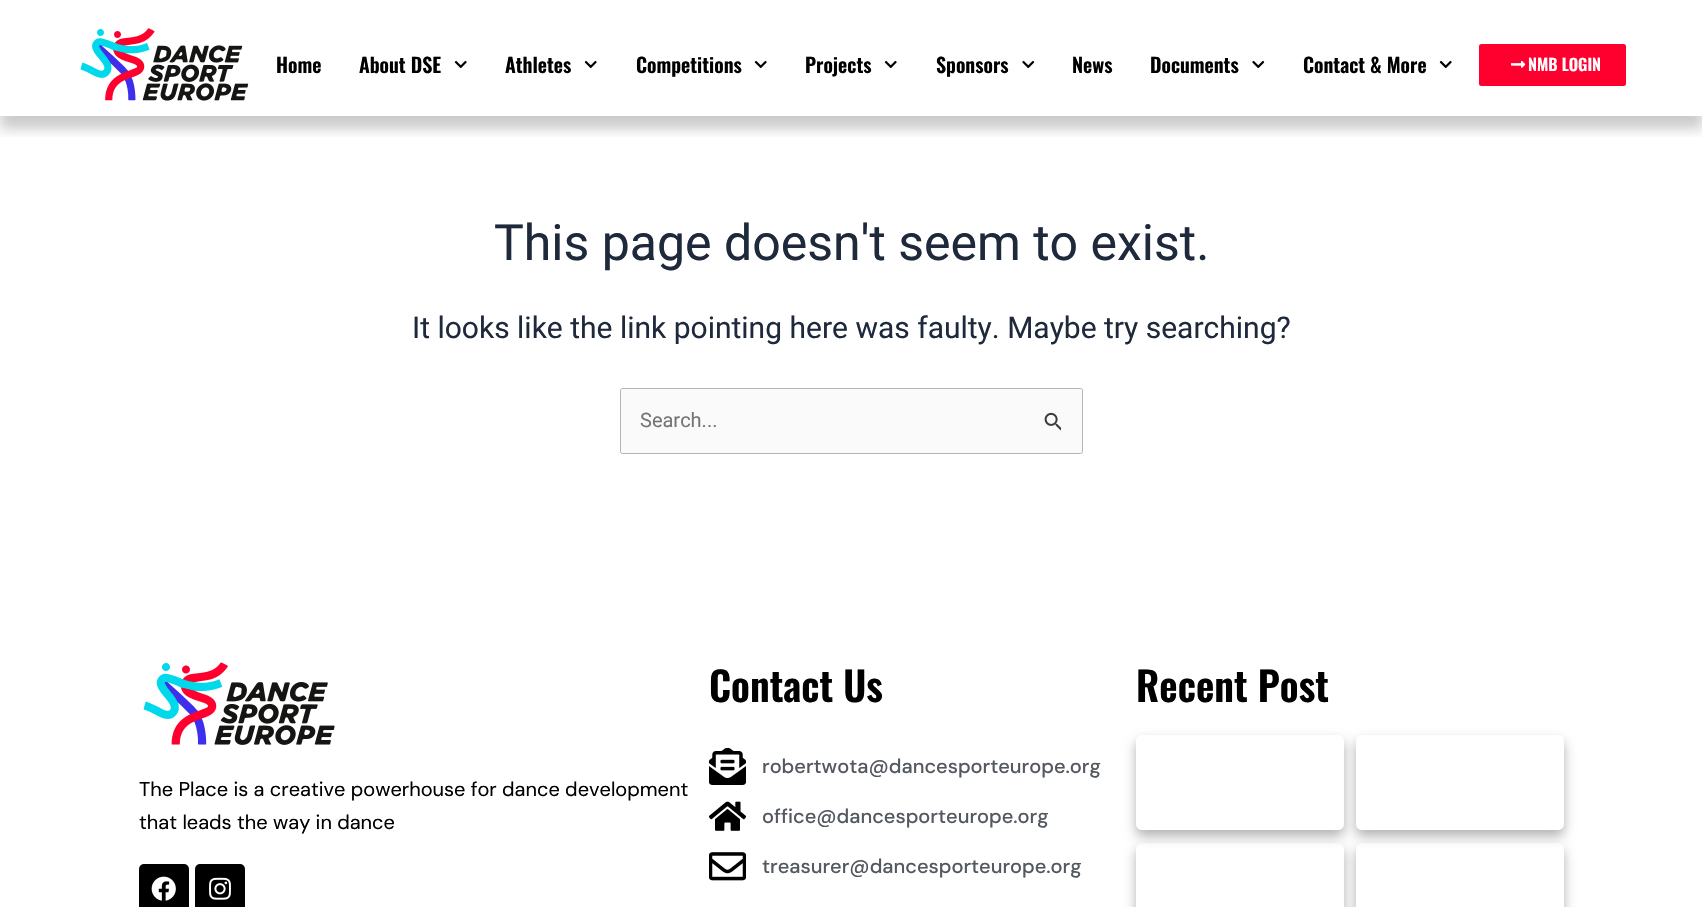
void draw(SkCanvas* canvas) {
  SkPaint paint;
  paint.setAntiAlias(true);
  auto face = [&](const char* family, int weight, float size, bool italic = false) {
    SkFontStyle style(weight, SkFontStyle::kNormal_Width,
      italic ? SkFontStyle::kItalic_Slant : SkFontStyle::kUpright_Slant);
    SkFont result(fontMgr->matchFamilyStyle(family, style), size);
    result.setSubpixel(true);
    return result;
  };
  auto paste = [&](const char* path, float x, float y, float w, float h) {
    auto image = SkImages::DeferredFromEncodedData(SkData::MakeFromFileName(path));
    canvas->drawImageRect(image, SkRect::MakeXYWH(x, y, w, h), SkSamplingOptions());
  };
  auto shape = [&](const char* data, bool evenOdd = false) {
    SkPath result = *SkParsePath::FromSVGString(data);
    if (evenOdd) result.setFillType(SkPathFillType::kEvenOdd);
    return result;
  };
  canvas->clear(0xffffffff);
  canvas->save();
  canvas->clipRect(SkRect::MakeXYWH(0, 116, 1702, 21));
  paint.setColor(0x33000000);
  paint.setMaskFilter(SkMaskFilter::MakeBlur(kNormal_SkBlurStyle, 6));
  canvas->drawRect(SkRect::MakeXYWH(0, 25, 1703, 104), paint);
  paint.setMaskFilter(nullptr);
  canvas->restore();
  paste("img/1.png", 80, 28, 169, 73);
  paste("img/2.png", 454, 60, 13, 9);
  paste("img/2.png", 584, 60, 13, 9);
  paste("img/2.png", 754, 60, 13, 9);
  paste("img/2.png", 884, 60, 13, 9);
  paste("img/3.png", 1022, 60, 13, 9);
  paste("img/3.png", 1252, 60, 13, 9);
  paste("img/2.png", 1439, 60, 13, 9);
  paint.setColor(0xffff002e);
  canvas->drawRoundRect(SkRect::MakeXYWH(1479, 44, 147, 42), 2.5f, 2.5f, paint);
  paste("img/4.png", 1511, 60, 15, 8);
  paint.setColor(0xfffafafa);
  canvas->drawRoundRect(SkRect::MakeXYWH(620.5f, 388.5f, 462, 65), 2, 2, paint);
  paint.setStroke(true);
  paint.setStrokeWidth(1);
  paint.setColor(0xffadb6be);
  canvas->drawRoundRect(SkRect::MakeXYWH(620.5f, 388.5f, 462, 65), 2, 2, paint);
  paste("img/5.png", 1044, 412, 17, 19);
  paste("img/6.png", 709, 748, 37, 37);
  paste("img/7.png", 709, 801, 37, 30);
  paste("img/8.png", 709, 852, 37, 29);
  canvas->save();
  canvas->clipPath(shape("M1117 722H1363V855H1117ZM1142 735H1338C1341.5 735 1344 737.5 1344 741V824C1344 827.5 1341.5 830 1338 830H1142C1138.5 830 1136 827.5 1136 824V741C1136 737.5 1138.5 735 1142 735Z", true), true);
  paint.setStroke(false);
  paint.setColor(0x4d000000);
  paint.setMaskFilter(SkMaskFilter::MakeBlur(kNormal_SkBlurStyle, 6));
  canvas->drawRoundRect(SkRect::MakeXYWH(1136, 741, 208, 95), 6, 6, paint);
  paint.setMaskFilter(nullptr);
  canvas->restore();
  canvas->save();
  canvas->clipPath(shape("M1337 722H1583V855H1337ZM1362 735H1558C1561.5 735 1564 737.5 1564 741V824C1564 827.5 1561.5 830 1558 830H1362C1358.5 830 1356 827.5 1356 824V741C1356 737.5 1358.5 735 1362 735Z", true), true);
  paint.setMaskFilter(SkMaskFilter::MakeBlur(kNormal_SkBlurStyle, 6));
  canvas->drawRoundRect(SkRect::MakeXYWH(1356, 741, 208, 95), 6, 6, paint);
  paint.setMaskFilter(nullptr);
  canvas->restore();
  canvas->save();
  canvas->clipPath(shape("M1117 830H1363V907H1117ZM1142 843H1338C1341.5 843 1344 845.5 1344 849V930C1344 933.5 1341.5 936 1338 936H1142C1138.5 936 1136 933.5 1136 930V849C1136 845.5 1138.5 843 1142 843Z", true), true);
  paint.setMaskFilter(SkMaskFilter::MakeBlur(kNormal_SkBlurStyle, 6));
  canvas->drawRoundRect(SkRect::MakeXYWH(1136, 849, 208, 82), 6, 6, paint);
  paint.setMaskFilter(nullptr);
  canvas->restore();
  canvas->save();
  canvas->clipPath(shape("M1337 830H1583V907H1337ZM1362 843H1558C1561.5 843 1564 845.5 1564 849V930C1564 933.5 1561.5 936 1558 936H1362C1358.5 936 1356 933.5 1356 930V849C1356 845.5 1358.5 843 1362 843Z", true), true);
  paint.setMaskFilter(SkMaskFilter::MakeBlur(kNormal_SkBlurStyle, 6));
  canvas->drawRoundRect(SkRect::MakeXYWH(1356, 849, 208, 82), 6, 6, paint);
  paint.setMaskFilter(nullptr);
  canvas->restore();
  paste("img/9.png", 143, 662, 192, 83);
  paint.setColor(0xff000000);
  canvas->drawRoundRect(SkRect::MakeXYWH(139, 864, 50, 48), 5, 5, paint);
  paste("img/10.png", 151, 876, 25, 25);
  canvas->drawRoundRect(SkRect::MakeXYWH(195, 864, 50, 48), 5, 5, paint);
  paste("img/11.png", 209, 877, 22, 23);
  auto f0 = face("Oswald", 600, 20);
  {
    const struct { const char* s; float x, y; } items[] = {
      {"Home", 276, 73},
      {"About DSE", 359, 73},
      {"Athletes", 505, 73},
      {"Competitions", 636, 73},
      {"Projects", 805, 73},
      {"Sponsors", 936, 73},
      {"News", 1072, 73},
      {"Documents", 1150, 73},
      {"Contact & More", 1303, 73},
    };
    for (auto [s, x, y] : items) {
      canvas->drawString(s, x, y, f0, paint);
    }
  }
  auto f1 = face("Oswald", 600, 16.25f);
  paint.setColor(0xffffffff);
  canvas->drawString("NMB LOGIN", 1528, 71, f1, paint);
  auto f2 = face("Roboto", 400, 50);
  paint.setColor(0xff1e293b);
  canvas->drawString("This page doesn't seem to exist.", 494, 260, f2, paint);
  auto f3 = face("Roboto", 400, 30);
  canvas->drawString("It looks like the link pointing here was faulty. Maybe try searching?", 412, 338, f3, paint);
  auto f4 = face("Roboto", 400, 20);
  paint.setColor(0xff757575);
  canvas->drawString("Search...", 640, 427, f4, paint);
  auto f5 = face("Oswald", 600, 40);
  paint.setColor(0xff000000);
  canvas->drawString("Contact Us", 709, 702, f5, paint);
  auto f6 = face("DM Sans", 500, 20);
  paint.setColor(0xff54595f);
  {
    const struct { const char* s; float x, y; } items[] = {
      {"robertwota@dancesporteurope.org", 762, 773},
      {"office@dancesporteurope.org", 762, 823},
      {"treasurer@dancesporteurope.org", 762, 873},
    };
    for (auto [s, x, y] : items) {
      canvas->drawString(s, x, y, f6, paint);
    }
  }
  paint.setColor(0xff000000);
  canvas->drawString("Recent Post", 1136, 702, f5, paint);
  auto f7 = face("DM Sans", 400, 20);
  canvas->drawString("The Place is a creative powerhouse for dance development", 139, 796, f7, paint);
  canvas->drawString("that leads the way in dance", 139, 829, f7, paint);
}
